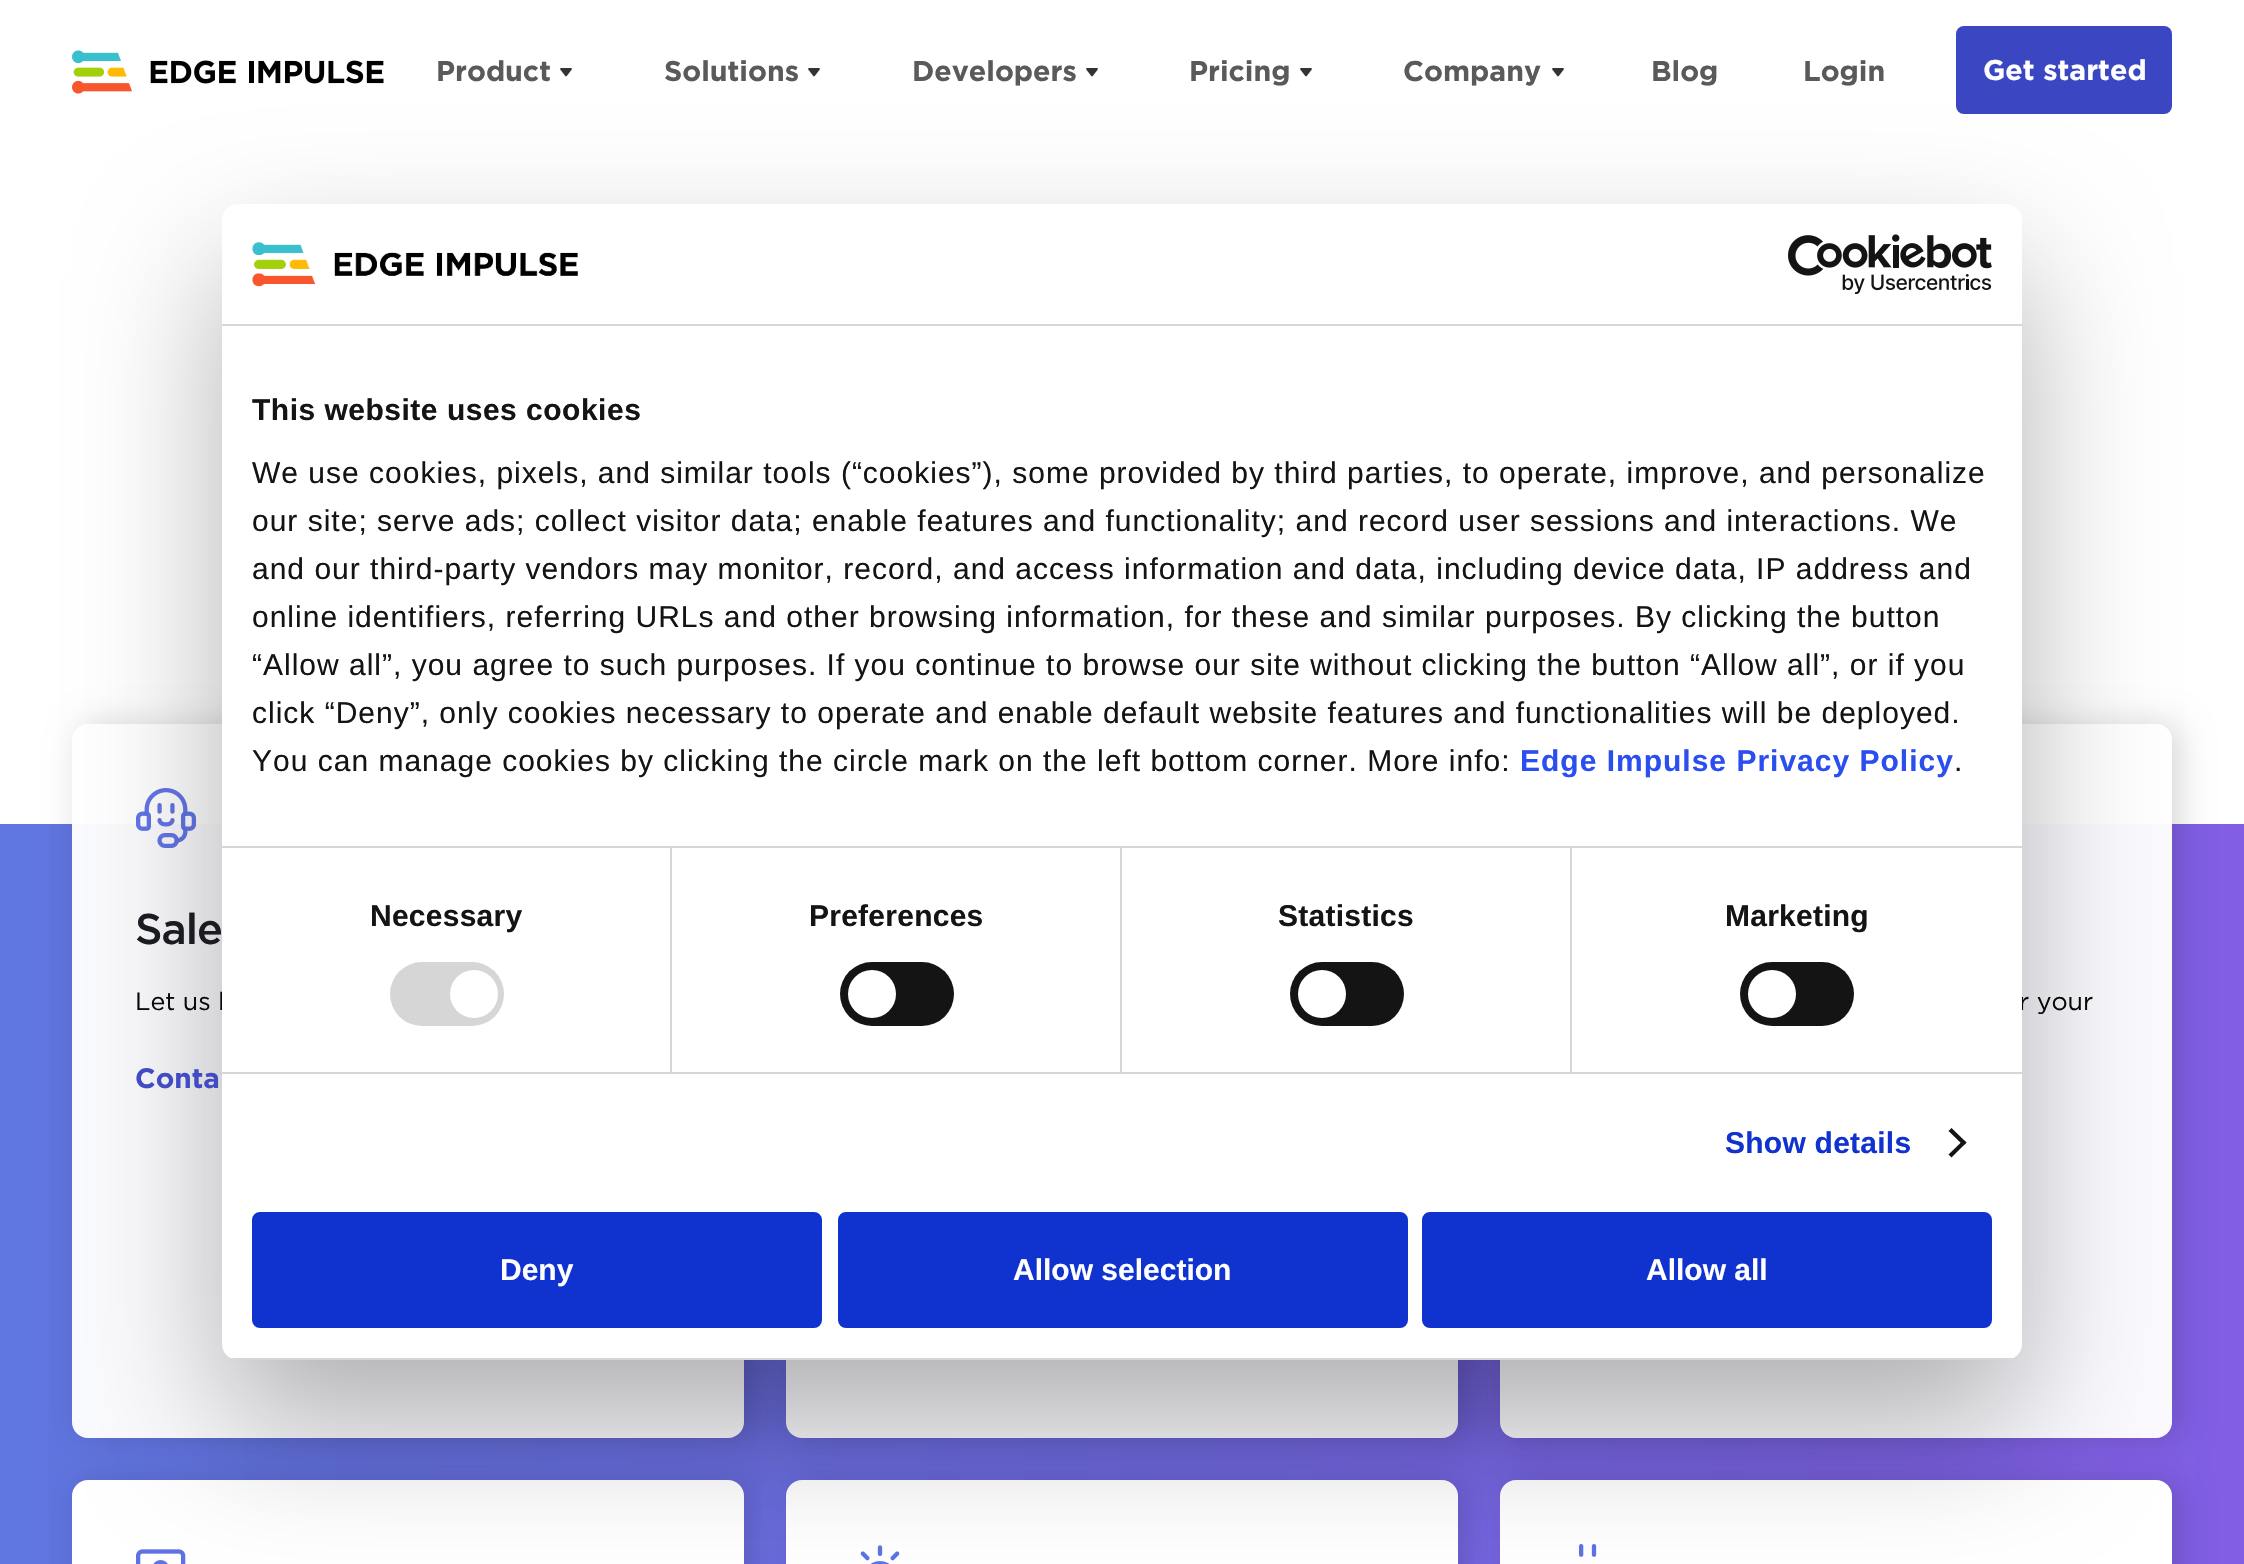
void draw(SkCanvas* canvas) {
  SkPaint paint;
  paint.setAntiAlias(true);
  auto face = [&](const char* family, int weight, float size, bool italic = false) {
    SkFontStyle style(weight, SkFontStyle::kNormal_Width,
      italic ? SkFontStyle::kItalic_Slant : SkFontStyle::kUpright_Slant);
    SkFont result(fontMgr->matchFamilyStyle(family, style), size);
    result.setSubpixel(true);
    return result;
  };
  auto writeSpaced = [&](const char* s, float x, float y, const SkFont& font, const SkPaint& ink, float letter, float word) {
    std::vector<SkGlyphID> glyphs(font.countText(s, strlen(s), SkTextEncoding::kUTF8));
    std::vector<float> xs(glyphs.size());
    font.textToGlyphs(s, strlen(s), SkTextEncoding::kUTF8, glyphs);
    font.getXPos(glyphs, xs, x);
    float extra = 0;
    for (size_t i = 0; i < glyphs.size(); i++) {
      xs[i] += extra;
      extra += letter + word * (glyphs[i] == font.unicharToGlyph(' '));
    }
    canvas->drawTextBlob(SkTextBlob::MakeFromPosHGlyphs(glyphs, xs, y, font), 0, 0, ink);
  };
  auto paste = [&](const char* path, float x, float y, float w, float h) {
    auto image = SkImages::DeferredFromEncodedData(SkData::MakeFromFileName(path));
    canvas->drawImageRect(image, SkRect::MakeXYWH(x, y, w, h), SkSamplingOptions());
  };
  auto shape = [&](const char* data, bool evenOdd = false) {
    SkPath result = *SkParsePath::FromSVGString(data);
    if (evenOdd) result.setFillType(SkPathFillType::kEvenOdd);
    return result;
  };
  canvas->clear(0xffffffff);
  paste("img/1.png", 72, 50, 312, 44);
  paste("img/2.png", 560, 68, 12, 9);
  paste("img/2.png", 808, 68, 12, 9);
  paste("img/2.png", 1086, 68, 12, 9);
  paste("img/2.png", 1300, 68, 12, 9);
  paste("img/2.png", 1552, 68, 12, 9);
  paint.setColor(0xff3b47c2);
  canvas->drawRoundRect(SkRect::MakeXYWH(1956, 26, 216, 88), 8, 8, paint);
  {
    const SkColor colors[] = {0xff5f75e0, 0xff815ee4};
    const float stops[] = {0, 1};
    const SkPoint ends[] = {{0, 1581}, {2244, 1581}};
    paint.setShader(SkGradientShader::MakeLinear(ends, colors, stops, 2, SkTileMode::kClamp));
    paint.setAlpha(255);
  }
  canvas->drawRect(SkRect::MakeXYWH(0, 824, 2244, 740), paint);
  paint.setShader(nullptr);
  paint.setColor(0x26000000);
  paint.setMaskFilter(SkMaskFilter::MakeBlur(kNormal_SkBlurStyle, 16));
  canvas->drawRoundRect(SkRect::MakeXYWH(80, 1480, 672, 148), 16, 16, paint);
  paint.setMaskFilter(nullptr);
  paint.setColor(0xffffffff);
  canvas->drawRoundRect(SkRect::MakeXYWH(72, 1480, 672, 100), 16, 16, paint);
  paint.setColor(0x26000000);
  paint.setMaskFilter(SkMaskFilter::MakeBlur(kNormal_SkBlurStyle, 16));
  canvas->drawRoundRect(SkRect::MakeXYWH(794, 1480, 672, 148), 16, 16, paint);
  paint.setMaskFilter(nullptr);
  paint.setColor(0xffffffff);
  canvas->drawRoundRect(SkRect::MakeXYWH(786, 1480, 672, 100), 16, 16, paint);
  canvas->save();
  canvas->clipPath(shape("M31 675H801V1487H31ZM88 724H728C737 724 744 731 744 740V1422C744 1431 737 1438 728 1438H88C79 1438 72 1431 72 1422V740C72 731 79 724 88 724Z", true), true);
  paint.setColor(0x26000000);
  paint.setMaskFilter(SkMaskFilter::MakeBlur(kNormal_SkBlurStyle, 16));
  canvas->drawRoundRect(SkRect::MakeXYWH(80, 724, 672, 714), 16, 16, paint);
  paint.setMaskFilter(nullptr);
  canvas->restore();
  paint.setColor(0xf7ffffff);
  canvas->drawRoundRect(SkRect::MakeXYWH(72, 724, 672, 714), 16, 16, paint);
  paste("img/3.png", 136, 788, 60, 60);
  paint.setColor(0x26000000);
  paint.setMaskFilter(SkMaskFilter::MakeBlur(kNormal_SkBlurStyle, 16));
  canvas->drawRoundRect(SkRect::MakeXYWH(1508, 1480, 672, 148), 16, 16, paint);
  paint.setMaskFilter(nullptr);
  paint.setColor(0xffffffff);
  canvas->drawRoundRect(SkRect::MakeXYWH(1500, 1480, 672, 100), 16, 16, paint);
  canvas->save();
  canvas->clipPath(shape("M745 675H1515V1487H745ZM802 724H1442C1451 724 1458 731 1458 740V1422C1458 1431 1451 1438 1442 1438H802C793 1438 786 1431 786 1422V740C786 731 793 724 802 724Z", true), true);
  paint.setColor(0x26000000);
  paint.setMaskFilter(SkMaskFilter::MakeBlur(kNormal_SkBlurStyle, 16));
  canvas->drawRoundRect(SkRect::MakeXYWH(794, 724, 672, 714), 16, 16, paint);
  paint.setMaskFilter(nullptr);
  canvas->restore();
  paint.setColor(0xf7ffffff);
  canvas->drawRoundRect(SkRect::MakeXYWH(786, 724, 672, 714), 16, 16, paint);
  canvas->save();
  canvas->clipPath(shape("M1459 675H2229V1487H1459ZM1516 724H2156C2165 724 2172 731 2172 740V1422C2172 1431 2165 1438 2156 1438H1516C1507 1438 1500 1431 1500 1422V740C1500 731 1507 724 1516 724Z", true), true);
  paint.setColor(0x26000000);
  paint.setMaskFilter(SkMaskFilter::MakeBlur(kNormal_SkBlurStyle, 16));
  canvas->drawRoundRect(SkRect::MakeXYWH(1508, 724, 672, 714), 16, 16, paint);
  paint.setMaskFilter(nullptr);
  canvas->restore();
  paint.setColor(0xf7ffffff);
  canvas->drawRoundRect(SkRect::MakeXYWH(1500, 724, 672, 714), 16, 16, paint);
  paste("img/4.png", 136, 1549, 50, 15);
  paste("img/5.png", 860, 1545, 40, 19);
  paste("img/6.png", 1579, 1544, 18, 13);
  paint.setColor(0x4d000000);
  paint.setMaskFilter(SkMaskFilter::MakeBlur(kNormal_SkBlurStyle, 68));
  canvas->drawRoundRect(SkRect::MakeXYWH(222, 268, 1800, 1156), 16, 16, paint);
  paint.setMaskFilter(nullptr);
  auto f0 = face("Gotham", 700, 28.5f);
  paint.setColor(0xff5a5a5a);
  {
    const struct { const char* s; float x, y; } items[] = {
      {"Product", 436, 81},
      {"Solutions", 664, 81},
      {"Developers", 912, 81},
      {"Pricing", 1189, 81},
      {"Company", 1403, 81},
      {"Blog", 1651, 81},
      {"Login", 1803, 81},
    };
    for (auto [s, x, y] : items) {
      canvas->drawString(s, x, y, f0, paint);
    }
  }
  paint.setColor(0xffffffff);
  canvas->drawString("Get started", 1983, 80, f0, paint);
  auto f1 = face("Gotham", 500, 43);
  paint.setColor(0xff1b1c21);
  writeSpaced("Sale", 135, 944, f1, paint, -1, 0);
  auto f2 = face("Gotham", 400, 25);
  paint.setColor(0xff080808);
  canvas->drawString("Let us k", 135, 1010, f2, paint);
  auto f3 = face("Gotham", 700, 28);
  paint.setColor(0xff414cc4);
  canvas->drawString("Conta", 135, 1088, f3, paint);
  paint.setColor(0xff080808);
  canvas->drawString("r your", 2019, 1010, f2, paint);
  paint.setColor(0xffffffff);
  canvas->drawRoundRect(SkRect::MakeXYWH(222, 204, 1800, 1156), 16, 16, paint);
  paint.setColor(0xffd6d6d6);
  canvas->drawRect(SkRect::MakeXYWH(222, 324, 1800, 2), paint);
  paste("img/7.png", 252, 241, 326, 46);
  paste("img/8.png", 1788, 234, 204, 60);
  canvas->drawRect(SkRect::MakeXYWH(222, 846, 1800, 2), paint);
  auto f4 = face("Liberation Sans", 700, 30);
  paint.setColor(0xff141414);
  writeSpaced("This website uses cookies", 252, 420, f4, paint, 0.5f, 0);
  auto f5 = face("Liberation Sans", 400, 30);
  {
    const struct { const char* s; float x, y; } items[] = {
      {"We use cookies, pixels, and similar tools (“cookies”), some provided by third parties, to operate, improve, and personalize", 252, 483},
      {"our site; serve ads; collect visitor data; enable features and functionality; and record user sessions and interactions. We", 252, 531},
      {"and our third-party vendors may monitor, record, and access information and data, including device data, IP address and", 252, 579},
      {"online identifiers, referring URLs and other browsing information, for these and similar purposes. By clicking the button", 252, 627},
      {"“Allow all”, you agree to such purposes. If you continue to browse our site without clicking the button “Allow all”, or if you", 252, 675},
      {"click “Deny”, only cookies necessary to operate and enable default website features and functionalities will be deployed.", 252, 723},
      {"You can manage cookies by clicking the circle mark on the left bottom corner. More info:", 252, 771},
    };
    for (auto [s, x, y] : items) {
      writeSpaced(s, x, y, f5, paint, 1, 0);
    }
  }
  paint.setColor(0xff2a4eef);
  writeSpaced("Edge Impulse Privacy Policy", 1520, 771, f4, paint, 1, 0);
  paint.setColor(0xff141414);
  writeSpaced(".", 1954, 771, f5, paint, 1, 0);
  paint.setColor(0xffd6d6d6);
  canvas->drawRect(SkRect::MakeXYWH(222, 1072, 1800, 2), paint);
  canvas->drawRect(SkRect::MakeXYWH(670, 848, 2, 224), paint);
  paint.setColor(0xff141414);
  writeSpaced("Necessary", 370, 926, f4, paint, 0.25f, 0);
  paint.setColor(0xffd6d6d6);
  canvas->drawRoundRect(SkRect::MakeXYWH(390, 962, 114, 64), 32, 32, paint);
  paint.setColor(0xffffffff);
  canvas->drawCircle(474, 994, 24, paint);
  paint.setColor(0xffd6d6d6);
  canvas->drawRect(SkRect::MakeXYWH(1120, 848, 2, 224), paint);
  paint.setColor(0xff141414);
  writeSpaced("Preferences", 809, 926, f4, paint, 0.25f, 0);
  canvas->drawRoundRect(SkRect::MakeXYWH(840, 962, 114, 64), 32, 32, paint);
  paint.setColor(0xffffffff);
  canvas->drawCircle(872, 994, 24, paint);
  paint.setColor(0xffd6d6d6);
  canvas->drawRect(SkRect::MakeXYWH(1570, 848, 2, 224), paint);
  paint.setColor(0xff141414);
  writeSpaced("Statistics", 1278, 926, f4, paint, 0.25f, 0);
  canvas->drawRoundRect(SkRect::MakeXYWH(1290, 962, 114, 64), 32, 32, paint);
  paint.setColor(0xffffffff);
  canvas->drawCircle(1322, 994, 24, paint);
  paint.setColor(0xff141414);
  writeSpaced("Marketing", 1725, 926, f4, paint, 0.25f, 0);
  canvas->drawRoundRect(SkRect::MakeXYWH(1740, 962, 114, 64), 32, 32, paint);
  paint.setColor(0xffffffff);
  canvas->drawCircle(1772, 994, 24, paint);
  paint.setColor(0xff1032cf);
  writeSpaced("Show details", 1725, 1153, f4, paint, 0.25f, 0);
  paint.setColor(0xff141414);
  canvas->drawPath(shape("M1951.5 1128L1966.5 1142.5L1963.5 1145.5L1948.5 1131Z"), paint);
  canvas->drawPath(shape("M1963.5 1140L1966.5 1142.5L1951.5 1157.5L1948.5 1154.5Z"), paint);
  canvas->save();
  canvas->clipPath(shape("M238 204H2006C2015 204 2022 211 2022 220V1344C2022 1353 2015 1360 2006 1360H238C229 1360 222 1353 222 1344V220C222 211 229 204 238 204Z"), true);
  paint.setColor(0xffd6d6d6);
  canvas->drawRect(SkRect::MakeXYWH(222, 1358, 1800, 2), paint);
  canvas->restore();
  paint.setColor(0xff1032cf);
  canvas->drawRoundRect(SkRect::MakeXYWH(254, 1214, 566, 112), 6, 6, paint);
  paint.setStroke(true);
  paint.setStrokeWidth(4);
  canvas->drawRoundRect(SkRect::MakeXYWH(254, 1214, 566, 112), 6, 6, paint);
  paint.setStroke(false);
  paint.setColor(0xffffffff);
  canvas->drawString("Deny", 500, 1280, f4, paint);
  paint.setColor(0xff1032cf);
  canvas->drawRoundRect(SkRect::MakeXYWH(840, 1214, 566, 112), 6, 6, paint);
  paint.setStroke(true);
  canvas->drawRoundRect(SkRect::MakeXYWH(840, 1214, 566, 112), 6, 6, paint);
  paint.setStroke(false);
  paint.setColor(0xffffffff);
  canvas->drawString("Allow selection", 1013, 1280, f4, paint);
  paint.setColor(0xff1032cf);
  canvas->drawRoundRect(SkRect::MakeXYWH(1424, 1214, 566, 112), 6, 6, paint);
  paint.setStroke(true);
  canvas->drawRoundRect(SkRect::MakeXYWH(1424, 1214, 566, 112), 6, 6, paint);
  paint.setStroke(false);
  paint.setColor(0xffffffff);
  canvas->drawString("Allow all", 1646, 1280, f4, paint);
}
